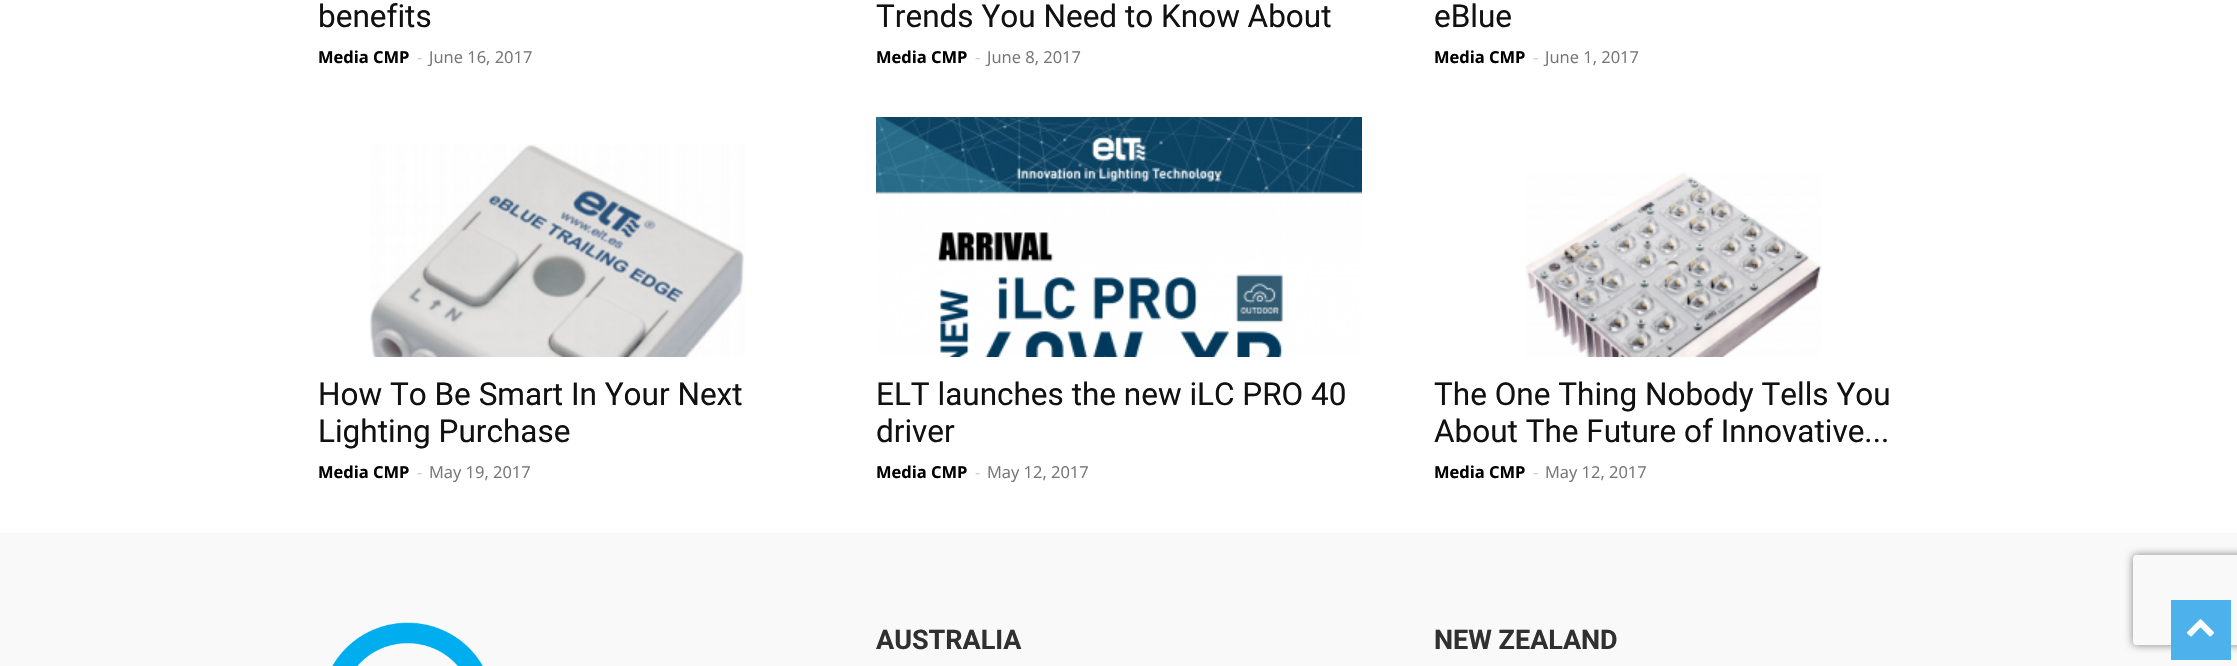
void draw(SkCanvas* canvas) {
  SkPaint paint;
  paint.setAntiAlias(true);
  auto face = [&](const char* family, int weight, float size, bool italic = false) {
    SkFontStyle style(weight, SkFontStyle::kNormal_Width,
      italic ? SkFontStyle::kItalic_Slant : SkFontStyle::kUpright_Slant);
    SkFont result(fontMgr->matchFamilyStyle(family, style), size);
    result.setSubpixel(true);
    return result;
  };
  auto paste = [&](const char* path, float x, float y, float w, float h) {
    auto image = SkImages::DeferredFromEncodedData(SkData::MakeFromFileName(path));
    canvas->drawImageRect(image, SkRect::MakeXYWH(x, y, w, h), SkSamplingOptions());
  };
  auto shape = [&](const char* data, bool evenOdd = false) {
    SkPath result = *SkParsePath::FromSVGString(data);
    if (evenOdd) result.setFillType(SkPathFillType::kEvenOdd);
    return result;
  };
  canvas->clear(0xffffffff);
  paste("img/1.png", 369, 144, 376, 213);
  paste("img/2.png", 876, 117, 486, 240);
  paste("img/3.png", 1525, 172, 297, 185);
  paint.setColor(0xfff9f9f9);
  canvas->drawRect(SkRect::MakeXYWH(0, 533, 2237, 133), paint);
  paste("img/4.png", 332, 622, 151, 44);
  canvas->save();
  canvas->clipPath(shape("M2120 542H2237V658H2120ZM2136 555H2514C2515.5 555 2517 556.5 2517 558V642C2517 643.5 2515.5 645 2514 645H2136C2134.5 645 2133 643.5 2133 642V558C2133 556.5 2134.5 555 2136 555Z", true), true);
  paint.setColor(0xff808080);
  paint.setMaskFilter(SkMaskFilter::MakeBlur(kNormal_SkBlurStyle, 4));
  canvas->drawRoundRect(SkRect::MakeXYWH(2133, 555, 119, 90), 3, 3, paint);
  paint.setMaskFilter(nullptr);
  canvas->restore();
  paint.setColor(0xff4db2ec);
  canvas->drawRect(SkRect::MakeXYWH(2171, 600, 60, 60), paint);
  paste("img/5.png", 2187, 619, 27, 18);
  auto f0 = face("Roboto", 400, 31.5f);
  paint.setColor(0xff111111);
  canvas->drawString("benefits", 318, 27, f0, paint);
  auto f1 = face("Open Sans", 700, 16.5f);
  paint.setColor(0xff000000);
  canvas->drawString("Media CMP", 318, 63, f1, paint);
  auto f2 = face("Open Sans", 400, 16.5f);
  paint.setColor(0xffcccccc);
  canvas->drawString("-", 417, 63, f2, paint);
  paint.setColor(0xff767676);
  canvas->drawString("June 16, 2017", 429, 63, f2, paint);
  paint.setColor(0xff111111);
  canvas->drawString("Trends You Need to Know About", 876, 27, f0, paint);
  paint.setColor(0xff000000);
  canvas->drawString("Media CMP", 876, 63, f1, paint);
  paint.setColor(0xffcccccc);
  canvas->drawString("-", 975, 63, f2, paint);
  paint.setColor(0xff767676);
  canvas->drawString("June 8, 2017", 987, 63, f2, paint);
  paint.setColor(0xff111111);
  canvas->drawString("eBlue", 1434, 27, f0, paint);
  paint.setColor(0xff000000);
  canvas->drawString("Media CMP", 1434, 63, f1, paint);
  paint.setColor(0xffcccccc);
  canvas->drawString("-", 1533, 63, f2, paint);
  paint.setColor(0xff767676);
  canvas->drawString("June 1, 2017", 1545, 63, f2, paint);
  paint.setColor(0xff111111);
  canvas->drawString("How To Be Smart In Your Next", 318, 405, f0, paint);
  canvas->drawString("Lighting Purchase", 318, 442, f0, paint);
  paint.setColor(0xff000000);
  canvas->drawString("Media CMP", 318, 478, f1, paint);
  paint.setColor(0xffcccccc);
  canvas->drawString("-", 417, 478, f2, paint);
  paint.setColor(0xff767676);
  canvas->drawString("May 19, 2017", 429, 478, f2, paint);
  paint.setColor(0xff111111);
  canvas->drawString("ELT launches the new iLC PRO 40", 876, 405, f0, paint);
  canvas->drawString("driver", 876, 442, f0, paint);
  paint.setColor(0xff000000);
  canvas->drawString("Media CMP", 876, 478, f1, paint);
  paint.setColor(0xffcccccc);
  canvas->drawString("-", 975, 478, f2, paint);
  paint.setColor(0xff767676);
  canvas->drawString("May 12, 2017", 987, 478, f2, paint);
  paint.setColor(0xff111111);
  canvas->drawString("The One Thing Nobody Tells You", 1434, 405, f0, paint);
  canvas->drawString("About The Future of Innovative...", 1434, 442, f0, paint);
  paint.setColor(0xff000000);
  canvas->drawString("Media CMP", 1434, 478, f1, paint);
  paint.setColor(0xffcccccc);
  canvas->drawString("-", 1533, 478, f2, paint);
  paint.setColor(0xff767676);
  canvas->drawString("May 12, 2017", 1545, 478, f2, paint);
  auto f3 = face("Roboto", 700, 27);
  paint.setColor(0xff303030);
  canvas->drawString("AUSTRALIA", 876, 649, f3, paint);
  canvas->drawString("NEW ZEALAND", 1434, 649, f3, paint);
}
